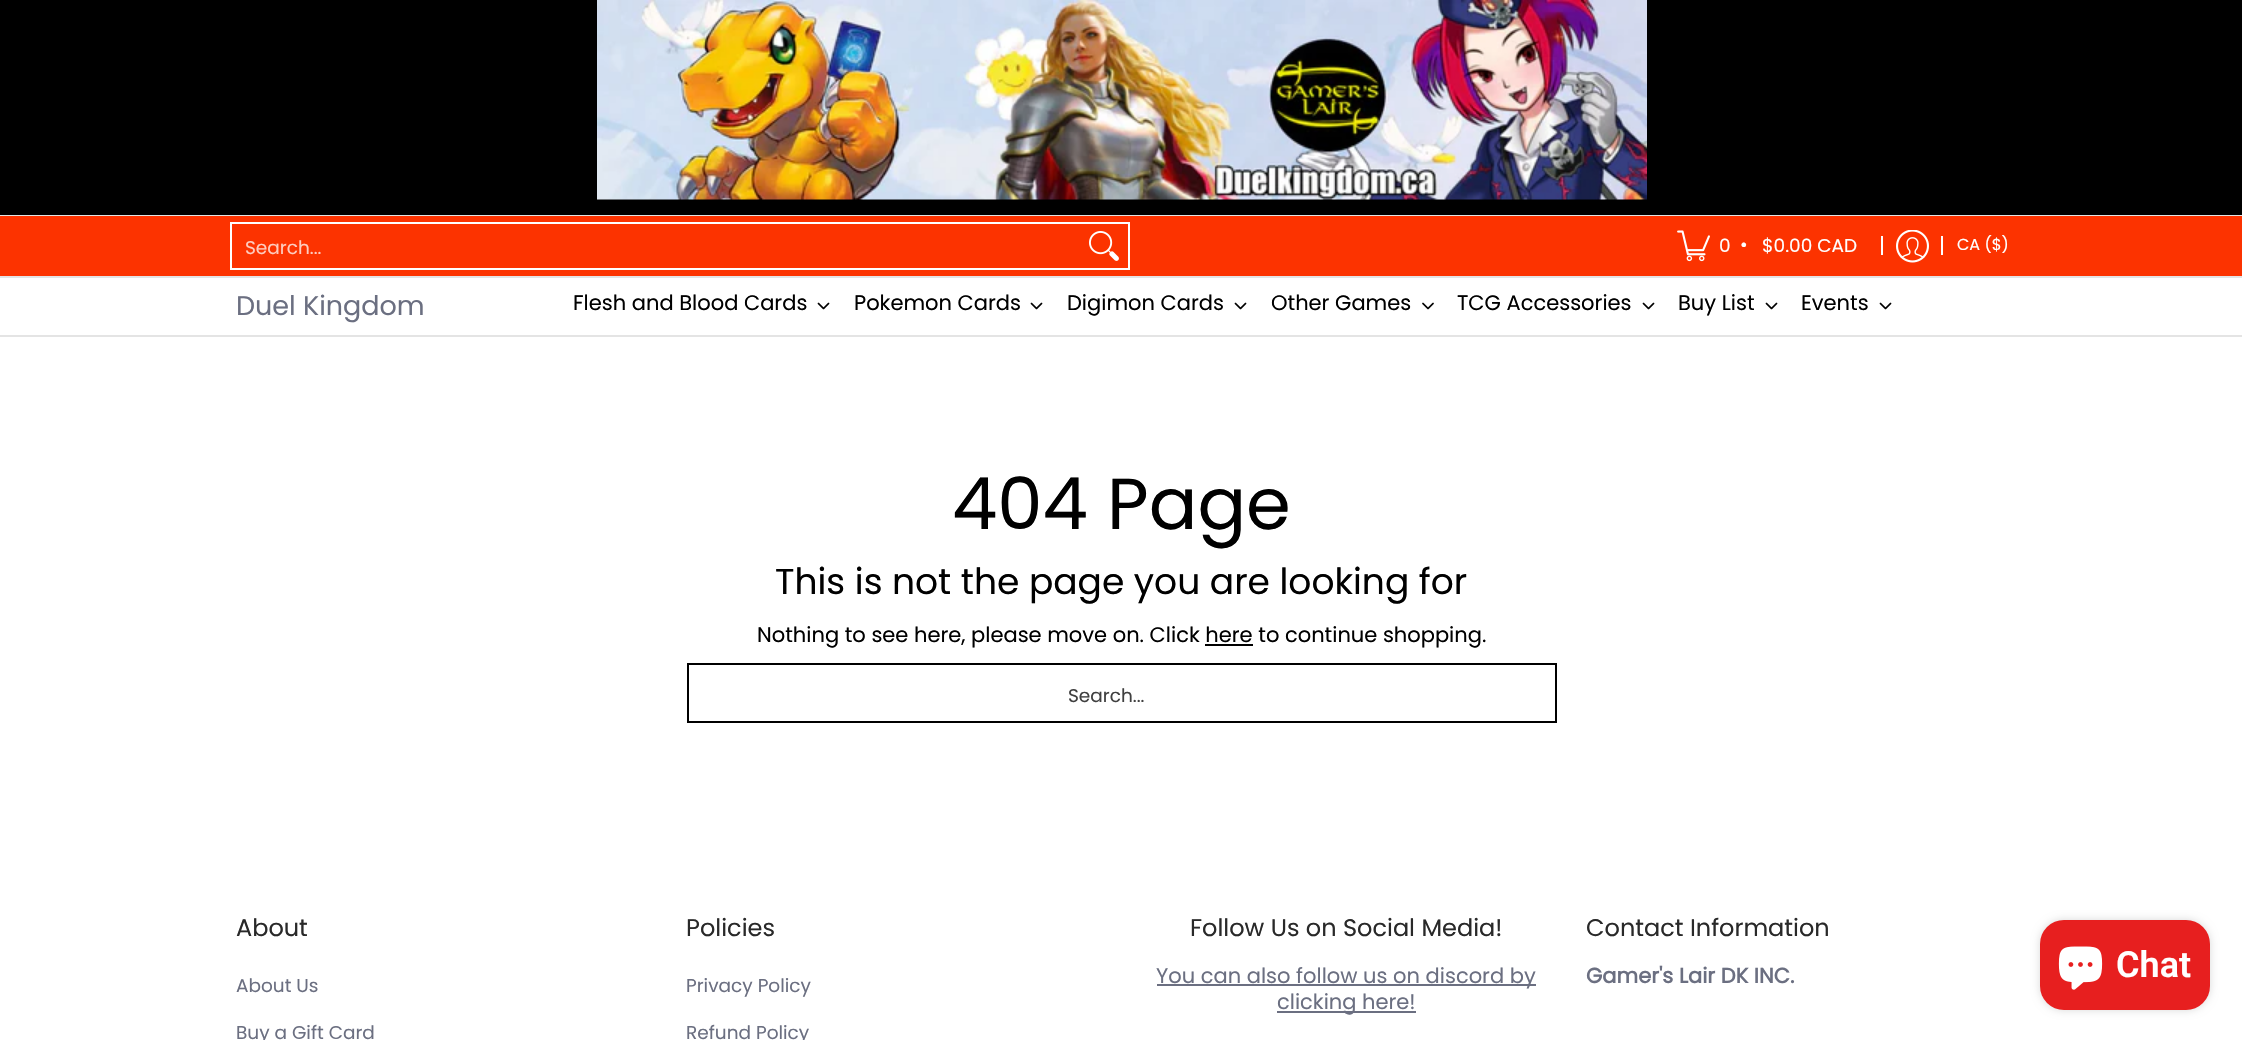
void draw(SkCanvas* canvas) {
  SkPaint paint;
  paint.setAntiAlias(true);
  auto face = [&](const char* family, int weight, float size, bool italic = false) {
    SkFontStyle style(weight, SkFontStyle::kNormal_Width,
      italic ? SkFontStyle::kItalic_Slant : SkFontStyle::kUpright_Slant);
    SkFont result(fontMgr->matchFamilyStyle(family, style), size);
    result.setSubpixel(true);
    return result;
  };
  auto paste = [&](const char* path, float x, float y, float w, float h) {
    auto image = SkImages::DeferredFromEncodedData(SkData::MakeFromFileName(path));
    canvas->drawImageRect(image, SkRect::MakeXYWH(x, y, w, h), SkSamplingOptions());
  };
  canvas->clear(0xffffffff);
  paint.setColor(0xff000000);
  canvas->drawRect(SkRect::MakeXYWH(0, 0, 2242, 215), paint);
  paint.setColor(0xffe4e4e4);
  canvas->drawRect(SkRect::MakeXYWH(0, 215, 2242, 1), paint);
  paste("img/1.png", 597, 0, 1050, 200);
  paint.setColor(0xfffc3300);
  canvas->drawRect(SkRect::MakeXYWH(0, 216, 2242, 60), paint);
  paint.setColor(0xffe4e4e4);
  canvas->drawRect(SkRect::MakeXYWH(0, 276, 2242, 2), paint);
  paint.setStroke(true);
  paint.setStrokeWidth(2);
  paint.setColor(0xffffffff);
  canvas->drawRect(SkRect::MakeXYWH(231, 223, 898, 46), paint);
  paste("img/2.png", 1089, 231, 30, 30);
  paste("img/3.png", 1677, 230, 33, 32);
  paint.setStroke(false);
  canvas->drawRect(SkRect::MakeXYWH(1881, 236, 2, 19), paint);
  paste("img/4.png", 1896, 230, 33, 33);
  canvas->drawRect(SkRect::MakeXYWH(1941, 236, 2, 19), paint);
  paint.setColor(0xffe4e4e4);
  canvas->drawRect(SkRect::MakeXYWH(0, 335, 2242, 2), paint);
  paste("img/5.png", 817, 302, 13, 8);
  paste("img/5.png", 1030, 302, 13, 8);
  paste("img/5.png", 1234, 302, 13, 8);
  paste("img/6.png", 1422, 302, 12, 8);
  paste("img/5.png", 1642, 302, 13, 8);
  paste("img/5.png", 1765, 302, 13, 8);
  paste("img/5.png", 1879, 302, 13, 8);
  paint.setColor(0xff000000);
  canvas->drawRect(SkRect::MakeXYWH(1205, 644, 48, 2), paint);
  paint.setStroke(true);
  canvas->drawRect(SkRect::MakeXYWH(688, 664, 868, 58), paint);
  paint.setStroke(false);
  paint.setColor(0xff6b6f81);
  canvas->drawRect(SkRect::MakeXYWH(1157, 984, 379, 2), paint);
  canvas->drawRect(SkRect::MakeXYWH(1277, 1011, 139, 2), paint);
  paint.setColor(0x26000000);
  paint.setMaskFilter(SkMaskFilter::MakeBlur(kNormal_SkBlurStyle, 4));
  canvas->drawRoundRect(SkRect::MakeXYWH(2040, 920, 170, 90), 24, 24, paint);
  paint.setMaskFilter(nullptr);
  paint.setColor(0xffe71f1f);
  canvas->drawRoundRect(SkRect::MakeXYWH(2040, 920, 170, 90), 24, 24, paint);
  paste("img/7.png", 2058, 946, 45, 44);
  auto f0 = face("Poppins", 400, 18.5f);
  paint.setColor(0xfffeccbf);
  canvas->drawString("Search...", 245, 254, f0, paint);
  paint.setColor(0xffffffff);
  {
    const struct { const char* s; float x, y; } items[] = {
      {"0", 1719, 252},
      {"•", 1740, 251},
      {"$0.00 CAD", 1762, 252},
    };
    for (auto [s, x, y] : items) {
      canvas->drawString(s, x, y, f0, paint);
    }
  }
  auto f1 = face("Poppins", 400, 16);
  canvas->drawString("CA ($)", 1957, 250, f1, paint);
  auto f2 = face("Poppins", 400, 27);
  paint.setColor(0xff6b6f81);
  canvas->drawString("Duel Kingdom", 236, 315, f2, paint);
  auto f3 = face("Poppins", 400, 21);
  paint.setColor(0xff000000);
  {
    const struct { const char* s; float x, y; } items[] = {
      {"Flesh and Blood Cards", 573, 310},
      {"Pokemon Cards", 854, 310},
      {"Digimon Cards", 1067, 310},
      {"Other Games", 1271, 310},
      {"TCG Accessories", 1457, 310},
      {"Buy List", 1678, 310},
      {"Events", 1801, 310},
    };
    for (auto [s, x, y] : items) {
      canvas->drawString(s, x, y, f3, paint);
    }
  }
  auto f4 = face("Poppins", 400, 72);
  canvas->drawString("404 Page", 952, 529, f4, paint);
  auto f5 = face("Poppins", 400, 36);
  canvas->drawString("This is not the page you are looking for", 775, 594, f5, paint);
  canvas->drawString("Nothing to see here, please move on. Click here to continue shopping.", 757, 642, f3, paint);
  paint.setColor(0xff404040);
  canvas->drawString("Search...", 1068, 702, f0, paint);
  auto f6 = face("Poppins", 400, 24);
  paint.setColor(0xff292929);
  canvas->drawString("About", 236, 936, f6, paint);
  paint.setColor(0xff6b6f81);
  canvas->drawString("About Us", 236, 992, f0, paint);
  canvas->drawString("Buy a Gift Card", 236, 1039, f0, paint);
  paint.setColor(0xff292929);
  canvas->drawString("Policies", 686, 936, f6, paint);
  paint.setColor(0xff6b6f81);
  canvas->drawString("Privacy Policy", 686, 992, f0, paint);
  canvas->drawString("Refund Policy", 686, 1039, f0, paint);
  paint.setColor(0xff292929);
  canvas->drawString("Follow Us on Social Media!", 1190, 936, f6, paint);
  paint.setColor(0xff6b6f81);
  canvas->drawString("You can also follow us on discord by", 1156, 983, f3, paint);
  canvas->drawString("clicking here!", 1277, 1009, f3, paint);
  paint.setColor(0xff292929);
  canvas->drawString("Contact Information", 1586, 936, f6, paint);
  auto f7 = face("Poppins", 700, 21);
  paint.setColor(0xff6b6f81);
  canvas->drawString("Gamer's Lair DK INC.", 1586, 983, f7, paint);
  auto f8 = face("Roboto", 600, 36);
  paint.setColor(0xffffffff);
  canvas->drawString("Chat", 2116, 977, f8, paint);
}
